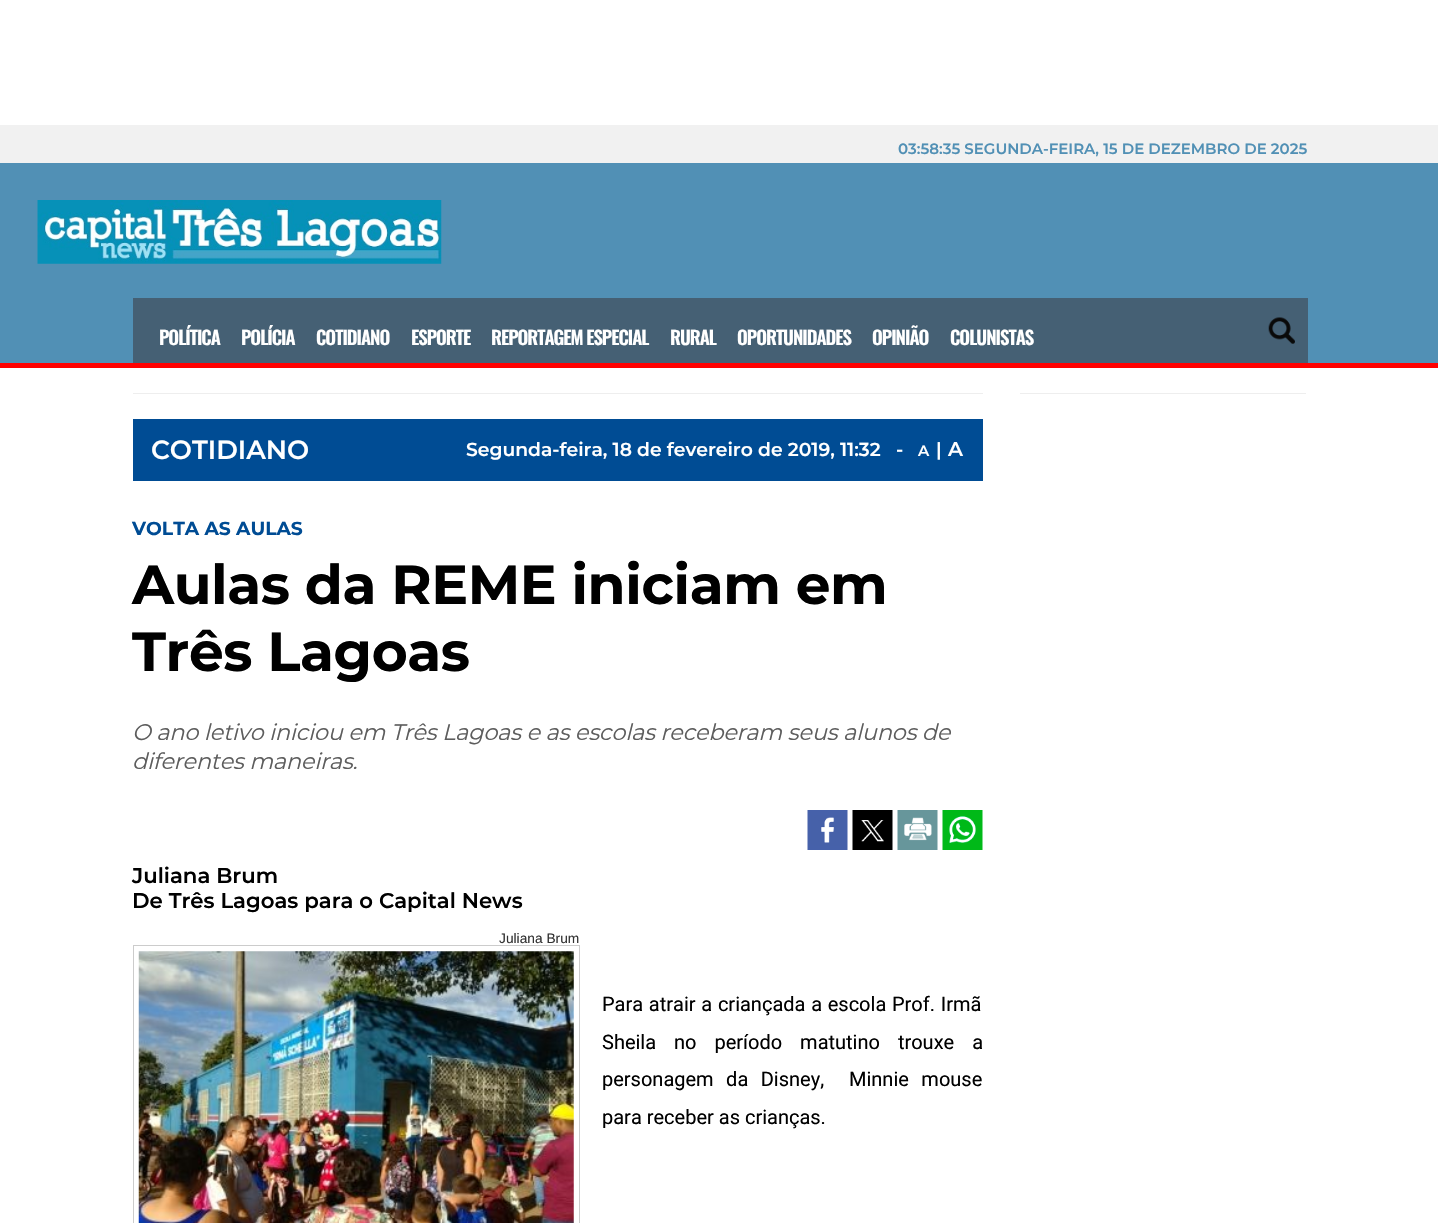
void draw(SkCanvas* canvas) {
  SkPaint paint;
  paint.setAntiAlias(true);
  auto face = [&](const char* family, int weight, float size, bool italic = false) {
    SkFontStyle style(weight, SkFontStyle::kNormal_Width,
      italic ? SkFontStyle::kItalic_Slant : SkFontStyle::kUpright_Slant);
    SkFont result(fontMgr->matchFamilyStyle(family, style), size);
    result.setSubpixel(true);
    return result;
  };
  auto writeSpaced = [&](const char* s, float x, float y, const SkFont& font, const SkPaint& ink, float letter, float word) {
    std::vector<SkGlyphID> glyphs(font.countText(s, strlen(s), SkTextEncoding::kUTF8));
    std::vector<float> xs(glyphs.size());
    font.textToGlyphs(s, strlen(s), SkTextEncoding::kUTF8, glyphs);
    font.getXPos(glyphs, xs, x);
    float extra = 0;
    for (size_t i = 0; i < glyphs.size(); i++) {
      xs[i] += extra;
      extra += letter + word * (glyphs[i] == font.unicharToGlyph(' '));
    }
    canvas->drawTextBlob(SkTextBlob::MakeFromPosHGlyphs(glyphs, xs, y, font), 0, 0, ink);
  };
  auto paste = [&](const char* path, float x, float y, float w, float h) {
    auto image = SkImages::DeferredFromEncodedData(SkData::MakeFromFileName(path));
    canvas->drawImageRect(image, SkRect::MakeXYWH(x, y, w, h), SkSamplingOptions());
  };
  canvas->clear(0xffffffff);
  paint.setColor(0xfff1f1f1);
  canvas->drawRect(SkRect::MakeXYWH(0, 125, 1438, 38), paint);
  paint.setColor(0xff5190b5);
  canvas->drawRect(SkRect::MakeXYWH(0, 163, 1438, 200), paint);
  paste("img/1.png", 37, 200, 405, 64);
  paint.setColor(0xffff0000);
  canvas->drawRect(SkRect::MakeXYWH(0, 363, 1438, 5), paint);
  paint.setColor(0xff456074);
  canvas->drawRect(SkRect::MakeXYWH(133, 298, 1175, 65), paint);
  paste("img/2.png", 1268, 317, 27, 27);
  {
    const struct { float x, y, w, h; SkColor color; } items[] = {
      {1020, 393, 286, 1, 0xffeeeeee},
      {133, 393, 850, 1, 0xffeeeeee},
      {133, 419, 850, 62, 0xff004c94},
    };
    for (auto [x, y, w, h, color] : items) {
      paint.setColor(color);
      canvas->drawRect(SkRect::MakeXYWH(x, y, w, h), paint);
    }
  }
  paste("img/3.png", 807, 810, 41, 40);
  paste("img/4.png", 852, 810, 41, 40);
  paste("img/5.png", 897, 810, 41, 40);
  paste("img/6.png", 942, 810, 41, 40);
  paint.setStroke(true);
  paint.setStrokeWidth(1);
  paint.setColor(0xffcccccc);
  canvas->drawRect(SkRect::MakeXYWH(133.5f, 945.5f, 446, 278), paint);
  paste("img/7.png", 138, 951, 436, 272);
  auto f0 = face("Montserrat", 600, 15);
  paint.setStroke(false);
  paint.setColor(0xff5190b5);
  canvas->drawString("03:58:35 SEGUNDA-FEIRA, 15 DE DEZEMBRO DE 2025", 898, 154, f0, paint);
  auto f1 = face("Oswald", 600, 18.75f);
  paint.setColor(0xffffffff);
  {
    const struct { const char* s; float x, y; } items[] = {
      {"POLÍTICA", 159, 345},
      {"POLÍCIA", 241, 345},
      {"COTIDIANO", 316, 345},
      {"ESPORTE", 411, 345},
      {"REPORTAGEM ESPECIAL", 491, 345},
      {"RURAL", 670, 345},
      {"OPORTUNIDADES", 737, 345},
      {"OPINIÃO", 872, 345},
      {"COLUNISTAS", 950, 345},
    };
    for (auto [s, x, y] : items) {
      writeSpaced(s, x, y, f1, paint, -1, 0);
    }
  }
  auto f2 = face("Montserrat", 600, 26.25f);
  canvas->drawString("COTIDIANO", 151, 459, f2, paint);
  auto f3 = face("Montserrat", 600, 18.75f);
  canvas->drawString("Segunda-feira, 18 de fevereiro de 2019, 11:32", 466, 456, f3, paint);
  canvas->drawString("-", 896, 456, f3, paint);
  canvas->drawString("A", 918, 456, f0, paint);
  canvas->drawString("|", 936, 456, f3, paint);
  auto f4 = face("Montserrat", 600, 20);
  canvas->drawString("A", 948, 456, f4, paint);
  auto f5 = face("Montserrat", 700, 18.75f);
  paint.setColor(0xff004c94);
  canvas->drawString("VOLTA AS AULAS", 132, 535, f5, paint);
  auto f6 = face("Montserrat", 700, 55);
  paint.setColor(0xff000000);
  writeSpaced("Aulas da REME iniciam em", 132, 604, f6, paint, -0.4f, 0);
  writeSpaced("Três Lagoas", 132, 671, f6, paint, -0.4f, 0);
  auto f7 = face("Montserrat", 400, 22.5f, true);
  paint.setColor(0xff5d5d5d);
  writeSpaced("O ano letivo iniciou em Três Lagoas e as escolas receberam seus alunos de", 132, 740, f7, paint, -0.25f, 0);
  writeSpaced("diferentes maneiras.", 132, 769, f7, paint, -0.25f, 0);
  auto f8 = face("Montserrat", 600, 21.25f);
  paint.setColor(0xff000000);
  canvas->drawString("Juliana Brum", 132, 883, f8, paint);
  canvas->drawString("De Três Lagoas para o Capital News", 132, 908, f8, paint);
  auto f9 = face("Liberation Sans", 400, 13.75f);
  paint.setColor(0xff333333);
  canvas->drawString("Juliana Brum", 499, 943, f9, paint);
  auto f10 = face("Roboto", 400, 20);
  paint.setColor(0xff000000);
  writeSpaced("Para atrair a criançada a escola Prof. Irmã", 602, 1011, f10, paint, 0, 0.75f);
  writeSpaced("Sheila no período matutino trouxe a", 602, 1049, f10, paint, 0, 13);
  writeSpaced("personagem da Disney,  Minnie mouse", 602, 1086, f10, paint, 0, 7.5f);
  canvas->drawString("para receber as crianças.", 602, 1124, f10, paint);
}
